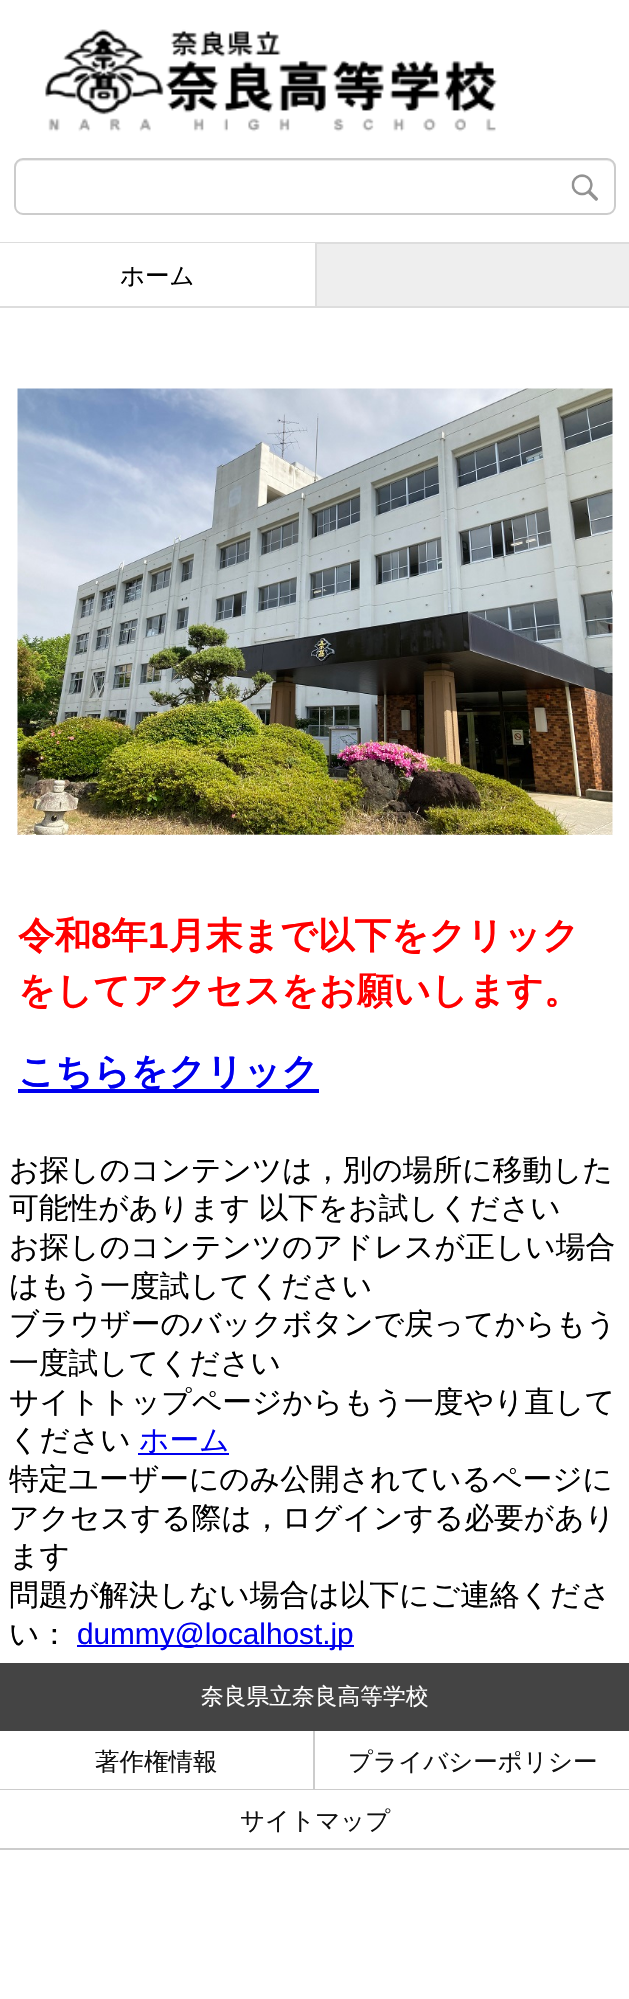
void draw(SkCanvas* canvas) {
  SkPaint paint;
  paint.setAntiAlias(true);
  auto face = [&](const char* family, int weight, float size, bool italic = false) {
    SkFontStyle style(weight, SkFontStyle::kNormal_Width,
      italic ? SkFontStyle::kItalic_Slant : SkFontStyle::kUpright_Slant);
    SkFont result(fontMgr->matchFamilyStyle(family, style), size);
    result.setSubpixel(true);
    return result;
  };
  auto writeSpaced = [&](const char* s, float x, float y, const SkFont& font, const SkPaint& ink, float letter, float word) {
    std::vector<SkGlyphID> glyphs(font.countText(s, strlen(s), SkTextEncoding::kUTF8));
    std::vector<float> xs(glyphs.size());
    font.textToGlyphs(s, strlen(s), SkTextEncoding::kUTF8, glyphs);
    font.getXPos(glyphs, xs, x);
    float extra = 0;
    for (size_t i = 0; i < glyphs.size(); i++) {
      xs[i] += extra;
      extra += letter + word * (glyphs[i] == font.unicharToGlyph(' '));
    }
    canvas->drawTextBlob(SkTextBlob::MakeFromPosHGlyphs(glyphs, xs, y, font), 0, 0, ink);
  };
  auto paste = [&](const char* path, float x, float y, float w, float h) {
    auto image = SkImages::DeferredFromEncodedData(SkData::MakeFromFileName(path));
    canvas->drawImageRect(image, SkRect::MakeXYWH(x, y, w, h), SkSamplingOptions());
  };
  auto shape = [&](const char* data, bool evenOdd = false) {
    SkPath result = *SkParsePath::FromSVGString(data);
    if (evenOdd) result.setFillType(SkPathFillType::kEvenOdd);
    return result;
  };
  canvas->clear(0xffffffff);
  paste("img/1.png", 45, 29, 453, 103);
  paint.setColor(0xffececec);
  canvas->drawPath(shape("M23 161H607C611 161 614 164 614 168V166C614 162 611 159 607 159H23C19 159 16 162 16 166V168C16 164 19 161 23 161Z"), paint);
  paint.setStroke(true);
  paint.setStrokeWidth(2);
  paint.setColor(0xffcccccc);
  canvas->drawRoundRect(SkRect::MakeXYWH(15, 159, 600, 55), 8, 8, paint);
  paste("img/2.png", 571, 174, 27, 27);
  paint.setStroke(false);
  {
    const struct { float x, y, w, h; SkColor color; } items[] = {
      {317, 244, 312, 62, 0xffeeeeee},
      {0, 242, 629, 2, 0xffdddddd},
      {0, 243, 315, 1, 0xffffffff},
      {0, 306, 629, 2, 0xffdddddd},
      {315, 243, 2, 65, 0xffdddddd},
    };
    for (auto [x, y, w, h, color] : items) {
      paint.setColor(color);
      canvas->drawRect(SkRect::MakeXYWH(x, y, w, h), paint);
    }
  }
  paste("img/3.png", 17, 388, 596, 447);
  {
    const struct { float x, y, w, h; SkColor color; } items[] = {
      {18, 1089, 301, 4, 0xff0000ee},
      {138, 1453, 91, 2, 0xff0000ee},
      {77, 1645, 277, 2, 0xff0000ee},
      {0, 1663, 629, 68, 0xff444444},
      {313, 1731, 2, 59, 0xffcccccc},
      {0, 1789, 629, 1, 0xffcccccc},
      {0, 1848, 629, 2, 0xffcccccc},
    };
    for (auto [x, y, w, h, color] : items) {
      paint.setColor(color);
      canvas->drawRect(SkRect::MakeXYWH(x, y, w, h), paint);
    }
  }
  auto f0 = face("WenQuanYi Zen Hei", 500, 24.5f);
  paint.setColor(0xff000000);
  canvas->drawString("ホーム", 120, 284, f0, paint);
  auto f1 = face("WenQuanYi Zen Hei", 700, 36.75f);
  paint.setColor(0xffff0000);
  canvas->drawString("令和", 18, 948, f1, paint);
  auto f2 = face("Liberation Sans", 700, 36.75f);
  canvas->drawString("8", 91, 948, f2, paint);
  canvas->drawString("年", 111, 948, f1, paint);
  canvas->drawString("1", 148, 948, f2, paint);
  canvas->drawString("月末まで以下をクリック", 169, 948, f1, paint);
  canvas->drawString("をしてアクセスをお願いします。", 18, 1003, f1, paint);
  paint.setColor(0xff0000ee);
  canvas->drawString("こちらをクリック", 18, 1084, f1, paint);
  auto f3 = face("WenQuanYi Zen Hei", 500, 29.75f);
  paint.setColor(0xff000000);
  canvas->drawString("お探しのコンテンツは，別の場所に移動した", 9, 1180, f3, paint);
  writeSpaced("可能性があります 以下をお試しください", 9, 1218, f3, paint, 0, -1);
  {
    const struct { const char* s; float x, y; } items[] = {
      {"お探しのコンテンツのアドレスが正しい場合", 9, 1257},
      {"はもう一度試してください", 9, 1296},
      {"ブラウザーのバックボタンで戻ってからもう", 9, 1334},
      {"一度試してください", 9, 1373},
      {"サイトトップページからもう一度やり直して", 9, 1412},
      {"ください", 9, 1450},
    };
    for (auto [s, x, y] : items) {
      canvas->drawString(s, x, y, f3, paint);
    }
  }
  paint.setColor(0xff0000ee);
  canvas->drawString("ホーム", 139, 1450, f3, paint);
  paint.setColor(0xff000000);
  {
    const struct { const char* s; float x, y; } items[] = {
      {"特定ユーザーにのみ公開されているページに", 9, 1489},
      {"アクセスする際は，ログインする必要があり", 9, 1528},
      {"ます", 9, 1566},
      {"問題が解決しない場合は以下にご連絡くださ", 9, 1605},
      {"い：", 9, 1644},
    };
    for (auto [s, x, y] : items) {
      canvas->drawString(s, x, y, f3, paint);
    }
  }
  auto f4 = face("Liberation Sans", 400, 29.75f);
  paint.setColor(0xff0000ee);
  canvas->drawString("dummy@localhost.jp", 77, 1644, f4, paint);
  auto f5 = face("WenQuanYi Zen Hei", 500, 22.75f);
  paint.setColor(0xffffffff);
  canvas->drawString("奈良県立奈良高等学校", 201, 1704, f5, paint);
  paint.setColor(0xff111111);
  {
    const struct { const char* s; float x, y; } items[] = {
      {"著作権情報", 95, 1770},
      {"プライバシーポリシー", 348, 1770},
      {"サイトマップ", 240, 1829},
    };
    for (auto [s, x, y] : items) {
      canvas->drawString(s, x, y, f0, paint);
    }
  }
}
